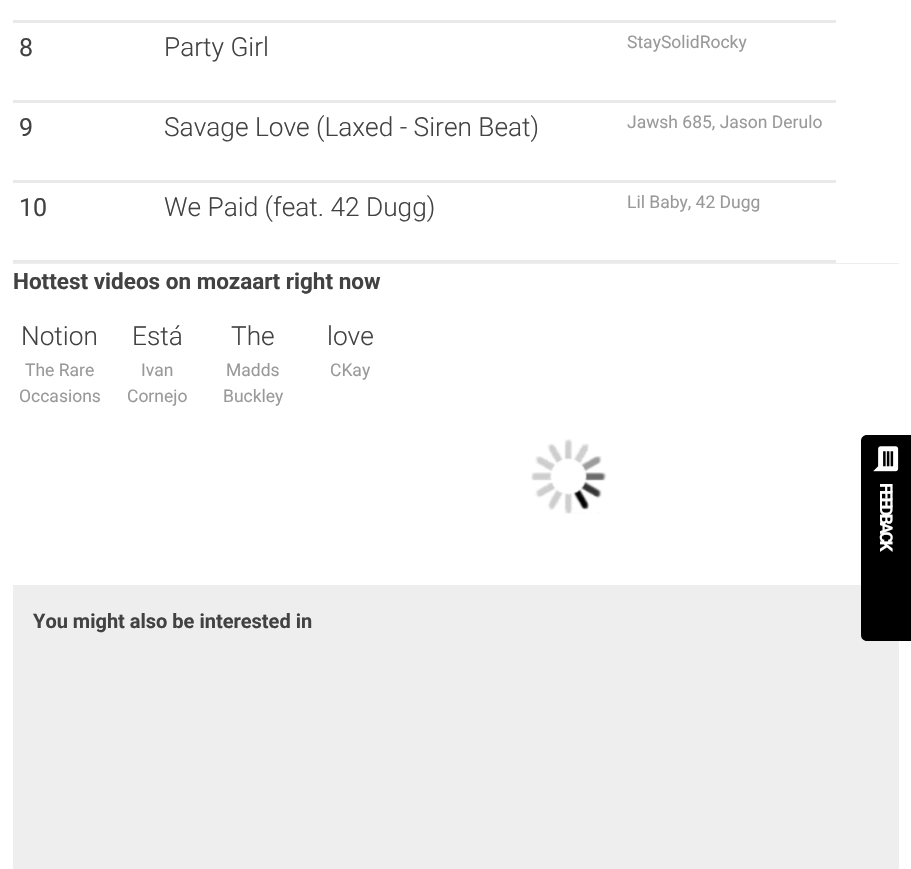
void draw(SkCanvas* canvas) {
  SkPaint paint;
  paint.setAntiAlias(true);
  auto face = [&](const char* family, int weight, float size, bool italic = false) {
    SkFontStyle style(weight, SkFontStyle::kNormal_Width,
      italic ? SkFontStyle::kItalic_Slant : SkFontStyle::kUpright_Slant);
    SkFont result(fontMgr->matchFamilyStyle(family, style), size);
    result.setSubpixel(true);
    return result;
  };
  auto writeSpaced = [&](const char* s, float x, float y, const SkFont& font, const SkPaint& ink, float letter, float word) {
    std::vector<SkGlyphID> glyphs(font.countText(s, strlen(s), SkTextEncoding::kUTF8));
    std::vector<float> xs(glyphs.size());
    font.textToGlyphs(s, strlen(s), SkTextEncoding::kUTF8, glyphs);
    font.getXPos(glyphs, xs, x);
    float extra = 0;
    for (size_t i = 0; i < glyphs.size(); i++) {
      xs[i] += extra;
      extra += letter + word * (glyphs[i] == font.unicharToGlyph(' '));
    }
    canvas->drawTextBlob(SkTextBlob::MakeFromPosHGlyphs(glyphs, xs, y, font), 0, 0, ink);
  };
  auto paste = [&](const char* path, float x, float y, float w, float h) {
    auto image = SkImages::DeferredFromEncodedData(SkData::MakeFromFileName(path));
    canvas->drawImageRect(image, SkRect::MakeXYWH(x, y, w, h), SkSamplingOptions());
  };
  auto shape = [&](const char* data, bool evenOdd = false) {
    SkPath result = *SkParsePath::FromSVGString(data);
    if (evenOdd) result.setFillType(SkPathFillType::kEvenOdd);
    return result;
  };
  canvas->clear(0xffffffff);
  {
    const struct { float x, y, w, h; SkColor color; } items[] = {
      {13, 263, 886, 1, 0xffeeeeee},
      {13, 20, 823, 3, 0xffe9e9e9},
      {13, 100, 823, 3, 0xffe9e9e9},
      {13, 180, 823, 3, 0xffe9e9e9},
      {13, 260, 823, 3, 0xffe9e9e9},
      {13, 585, 848, 1, 0xffeeeeee},
    };
    for (auto [x, y, w, h, color] : items) {
      paint.setColor(color);
      canvas->drawRect(SkRect::MakeXYWH(x, y, w, h), paint);
    }
  }
  paste("img/1.png", 531, 439, 76, 75);
  canvas->drawRect(SkRect::MakeXYWH(13, 586, 886, 283), paint);
  paint.setColor(0xff000000);
  canvas->drawPath(shape("M867 435H911V641H867C863.5 641 861 638.5 861 635V441C861 437.5 863.5 435 867 435Z"), paint);
  paste("img/2.png", 873, 446, 26, 26);
  auto f0 = face("Roboto", 400, 25);
  paint.setColor(0xff424242);
  canvas->drawString("8", 19, 56, f0, paint);
  auto f1 = face("Roboto", 300, 26.25f);
  canvas->drawString("Party Girl", 164, 56, f1, paint);
  auto f2 = face("Roboto", 400, 17.5f);
  paint.setColor(0xff999999);
  canvas->drawString("StaySolidRocky", 627, 48, f2, paint);
  paint.setColor(0xff424242);
  canvas->drawString("9", 19, 136, f0, paint);
  canvas->drawString("Savage Love (Laxed - Siren Beat)", 164, 136, f1, paint);
  paint.setColor(0xff999999);
  canvas->drawString("Jawsh 685, Jason Derulo", 627, 128, f2, paint);
  paint.setColor(0xff424242);
  canvas->drawString("10", 19, 216, f0, paint);
  canvas->drawString("We Paid (feat. 42 Dugg)", 164, 216, f1, paint);
  paint.setColor(0xff999999);
  canvas->drawString("Lil Baby, 42 Dugg", 627, 208, f2, paint);
  auto f3 = face("Roboto", 700, 22.5f);
  paint.setColor(0xff424242);
  canvas->drawString("Hottest videos on mozaart right now", 13, 289, f3, paint);
  canvas->drawString("Notion", 21, 345, f1, paint);
  paint.setColor(0xff999999);
  canvas->drawString("The Rare", 25, 376, f2, paint);
  canvas->drawString("Occasions", 19, 402, f2, paint);
  paint.setColor(0xff424242);
  canvas->drawString("Está", 132, 345, f1, paint);
  paint.setColor(0xff999999);
  canvas->drawString("Ivan", 141, 376, f2, paint);
  canvas->drawString("Cornejo", 127, 402, f2, paint);
  paint.setColor(0xff424242);
  canvas->drawString("The", 231, 345, f1, paint);
  paint.setColor(0xff999999);
  canvas->drawString("Madds", 226, 376, f2, paint);
  canvas->drawString("Buckley", 223, 402, f2, paint);
  paint.setColor(0xff424242);
  canvas->drawString("love", 327, 345, f1, paint);
  paint.setColor(0xff999999);
  canvas->drawString("CKay", 330, 376, f2, paint);
  auto f4 = face("Roboto", 700, 20);
  paint.setColor(0xff424242);
  canvas->drawString("You might also be interested in", 33, 628, f4, paint);
  auto f5 = face("Roboto", 700, 17.5f);
  paint.setColor(0xffffffff);
  canvas->save();
  canvas->rotate(90, 880, 483);
  writeSpaced("FEEDBACK", 880, 483, f5, paint, -2.5f, 0);
  canvas->restore();
}
